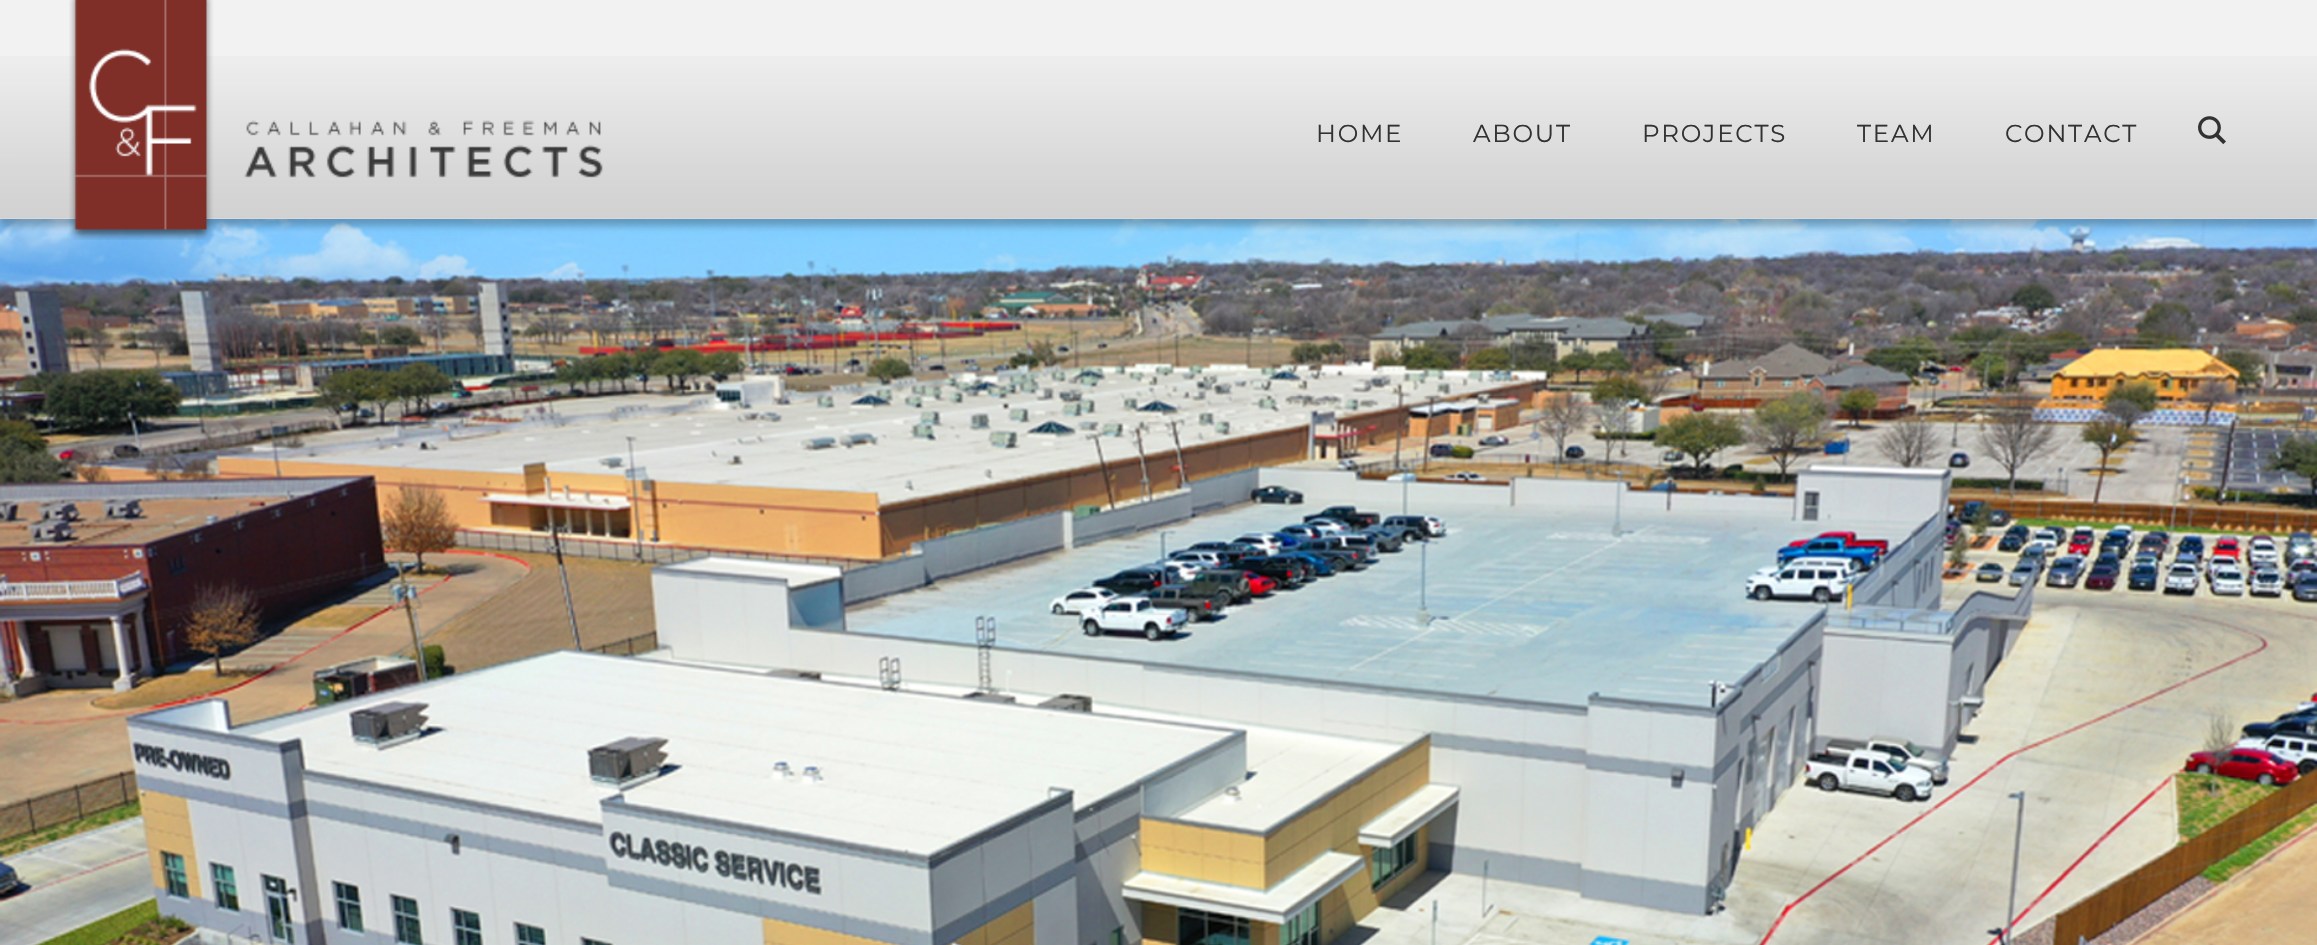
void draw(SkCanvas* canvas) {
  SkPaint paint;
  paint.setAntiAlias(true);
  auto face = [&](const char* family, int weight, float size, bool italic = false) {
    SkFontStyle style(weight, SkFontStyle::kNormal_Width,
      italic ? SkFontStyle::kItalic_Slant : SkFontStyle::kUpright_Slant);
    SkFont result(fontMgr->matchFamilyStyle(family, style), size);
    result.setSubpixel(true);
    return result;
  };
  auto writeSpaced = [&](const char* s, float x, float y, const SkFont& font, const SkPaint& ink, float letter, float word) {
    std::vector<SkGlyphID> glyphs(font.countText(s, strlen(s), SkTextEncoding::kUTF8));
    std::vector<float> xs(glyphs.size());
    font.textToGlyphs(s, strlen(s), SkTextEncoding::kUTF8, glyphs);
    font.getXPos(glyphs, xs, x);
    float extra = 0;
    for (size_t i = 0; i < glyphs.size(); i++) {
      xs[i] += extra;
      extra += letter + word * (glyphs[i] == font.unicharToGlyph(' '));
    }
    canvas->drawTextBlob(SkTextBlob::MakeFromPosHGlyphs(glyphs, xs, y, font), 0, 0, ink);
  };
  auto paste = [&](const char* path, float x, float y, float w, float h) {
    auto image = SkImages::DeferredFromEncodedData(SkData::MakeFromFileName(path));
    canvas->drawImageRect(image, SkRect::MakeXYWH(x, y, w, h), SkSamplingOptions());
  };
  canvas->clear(0xffffffff);
  paste("img/4.png", 0, 219, 2317, 726);
  paint.setColor(0x40000000);
  paint.setMaskFilter(SkMaskFilter::MakeBlur(kNormal_SkBlurStyle, 3.5f));
  canvas->drawRect(SkRect::MakeXYWH(0, 7, 2317, 219), paint);
  paint.setMaskFilter(nullptr);
  paint.setColor(0xfff2f2f2);
  canvas->drawRect(SkRect::MakeXYWH(0, 0, 2317, 219), paint);
  paste("img/1.png", 0, 56, 2317, 163);
  paste("img/2.png", 69, 0, 534, 240);
  paste("img/3.png", 2198, 116, 28, 29);
  auto f0 = face("Montserrat", 400, 24.5f);
  paint.setColor(0xff323232);
  {
    const struct { const char* s; float x, y; } items[] = {
      {"HOME", 1316, 142},
      {"ABOUT", 1473, 142},
      {"PROJECTS", 1642, 142},
      {"TEAM", 1857, 142},
      {"CONTACT", 2005, 142},
    };
    for (auto [s, x, y] : items) {
      writeSpaced(s, x, y, f0, paint, 1.75f, 0);
    }
  }
}
